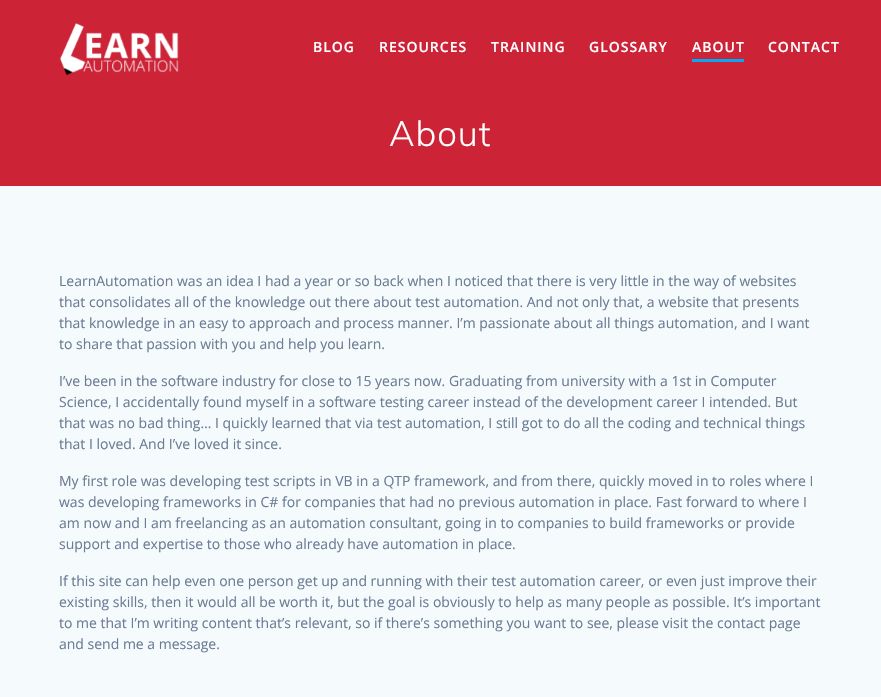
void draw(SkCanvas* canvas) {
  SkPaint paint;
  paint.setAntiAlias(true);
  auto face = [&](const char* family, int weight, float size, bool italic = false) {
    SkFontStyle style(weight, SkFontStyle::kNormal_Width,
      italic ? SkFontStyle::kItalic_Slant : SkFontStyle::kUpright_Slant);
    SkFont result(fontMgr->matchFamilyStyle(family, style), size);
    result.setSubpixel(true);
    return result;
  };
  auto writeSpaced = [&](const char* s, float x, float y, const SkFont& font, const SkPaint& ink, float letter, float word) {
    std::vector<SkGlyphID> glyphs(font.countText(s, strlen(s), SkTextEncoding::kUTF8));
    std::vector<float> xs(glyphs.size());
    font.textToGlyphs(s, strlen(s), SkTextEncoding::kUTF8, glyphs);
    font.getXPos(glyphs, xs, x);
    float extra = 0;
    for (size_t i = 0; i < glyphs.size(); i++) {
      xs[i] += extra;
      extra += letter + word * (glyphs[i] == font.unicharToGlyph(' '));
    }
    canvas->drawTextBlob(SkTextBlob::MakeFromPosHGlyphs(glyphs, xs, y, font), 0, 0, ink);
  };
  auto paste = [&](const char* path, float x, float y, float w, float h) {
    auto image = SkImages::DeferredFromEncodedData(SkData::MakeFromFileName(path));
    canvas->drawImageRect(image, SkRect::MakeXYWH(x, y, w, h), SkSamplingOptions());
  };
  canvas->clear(0xffcd2337);
  paste("img/1.png", 60, 23, 119, 53);
  paint.setColor(0xff03a9f4);
  canvas->drawRect(SkRect::MakeXYWH(692, 59, 52, 3), paint);
  paint.setColor(0xfff5fafd);
  canvas->drawRect(SkRect::MakeXYWH(0, 186, 881, 511), paint);
  auto f0 = face("Open Sans", 600, 14);
  paint.setColor(0xffffffff);
  {
    const struct { const char* s; float x, y; } items[] = {
      {"BLOG", 313, 52},
      {"RESOURCES", 379, 52},
      {"TRAINING", 491, 52},
      {"GLOSSARY", 589, 52},
      {"ABOUT", 692, 52},
      {"CONTACT", 768, 52},
    };
    for (auto [s, x, y] : items) {
      writeSpaced(s, x, y, f0, paint, 1, 0);
    }
  }
  auto f1 = face("Muli", 300, 35);
  writeSpaced("About", 389, 146, f1, paint, 1, 0);
  auto f2 = face("Open Sans", 400, 14);
  paint.setColor(0xff6b7c93);
  {
    const struct { const char* s; float x, y; } items[] = {
      {"LearnAutomation was an idea I had a year or so back when I noticed that there is very little in the way of websites", 59, 286},
      {"that consolidates all of the knowledge out there about test automation. And not only that, a website that presents", 59, 307},
      {"that knowledge in an easy to approach and process manner. I’m passionate about all things automation, and I want", 59, 328},
      {"to share that passion with you and help you learn.", 59, 349},
      {"I’ve been in the software industry for close to 15 years now. Graduating from university with a 1st in Computer", 59, 386},
      {"Science, I accidentally found myself in a software testing career instead of the development career I intended. But", 59, 407},
      {"that was no bad thing… I quickly learned that via test automation, I still got to do all the coding and technical things", 59, 428},
      {"that I loved. And I’ve loved it since.", 59, 449},
      {"My first role was developing test scripts in VB in a QTP framework, and from there, quickly moved in to roles where I", 59, 486},
      {"was developing frameworks in C# for companies that had no previous automation in place. Fast forward to where I", 59, 507},
      {"am now and I am freelancing as an automation consultant, going in to companies to build frameworks or provide", 59, 528},
      {"support and expertise to those who already have automation in place.", 59, 549},
      {"If this site can help even one person get up and running with their test automation career, or even just improve their", 59, 586},
      {"existing skills, then it would all be worth it, but the goal is obviously to help as many people as possible. It’s important", 59, 607},
      {"to me that I’m writing content that’s relevant, so if there’s something you want to see, please visit the contact page", 59, 628},
      {"and send me a message.", 59, 649},
    };
    for (auto [s, x, y] : items) {
      canvas->drawString(s, x, y, f2, paint);
    }
  }
}
